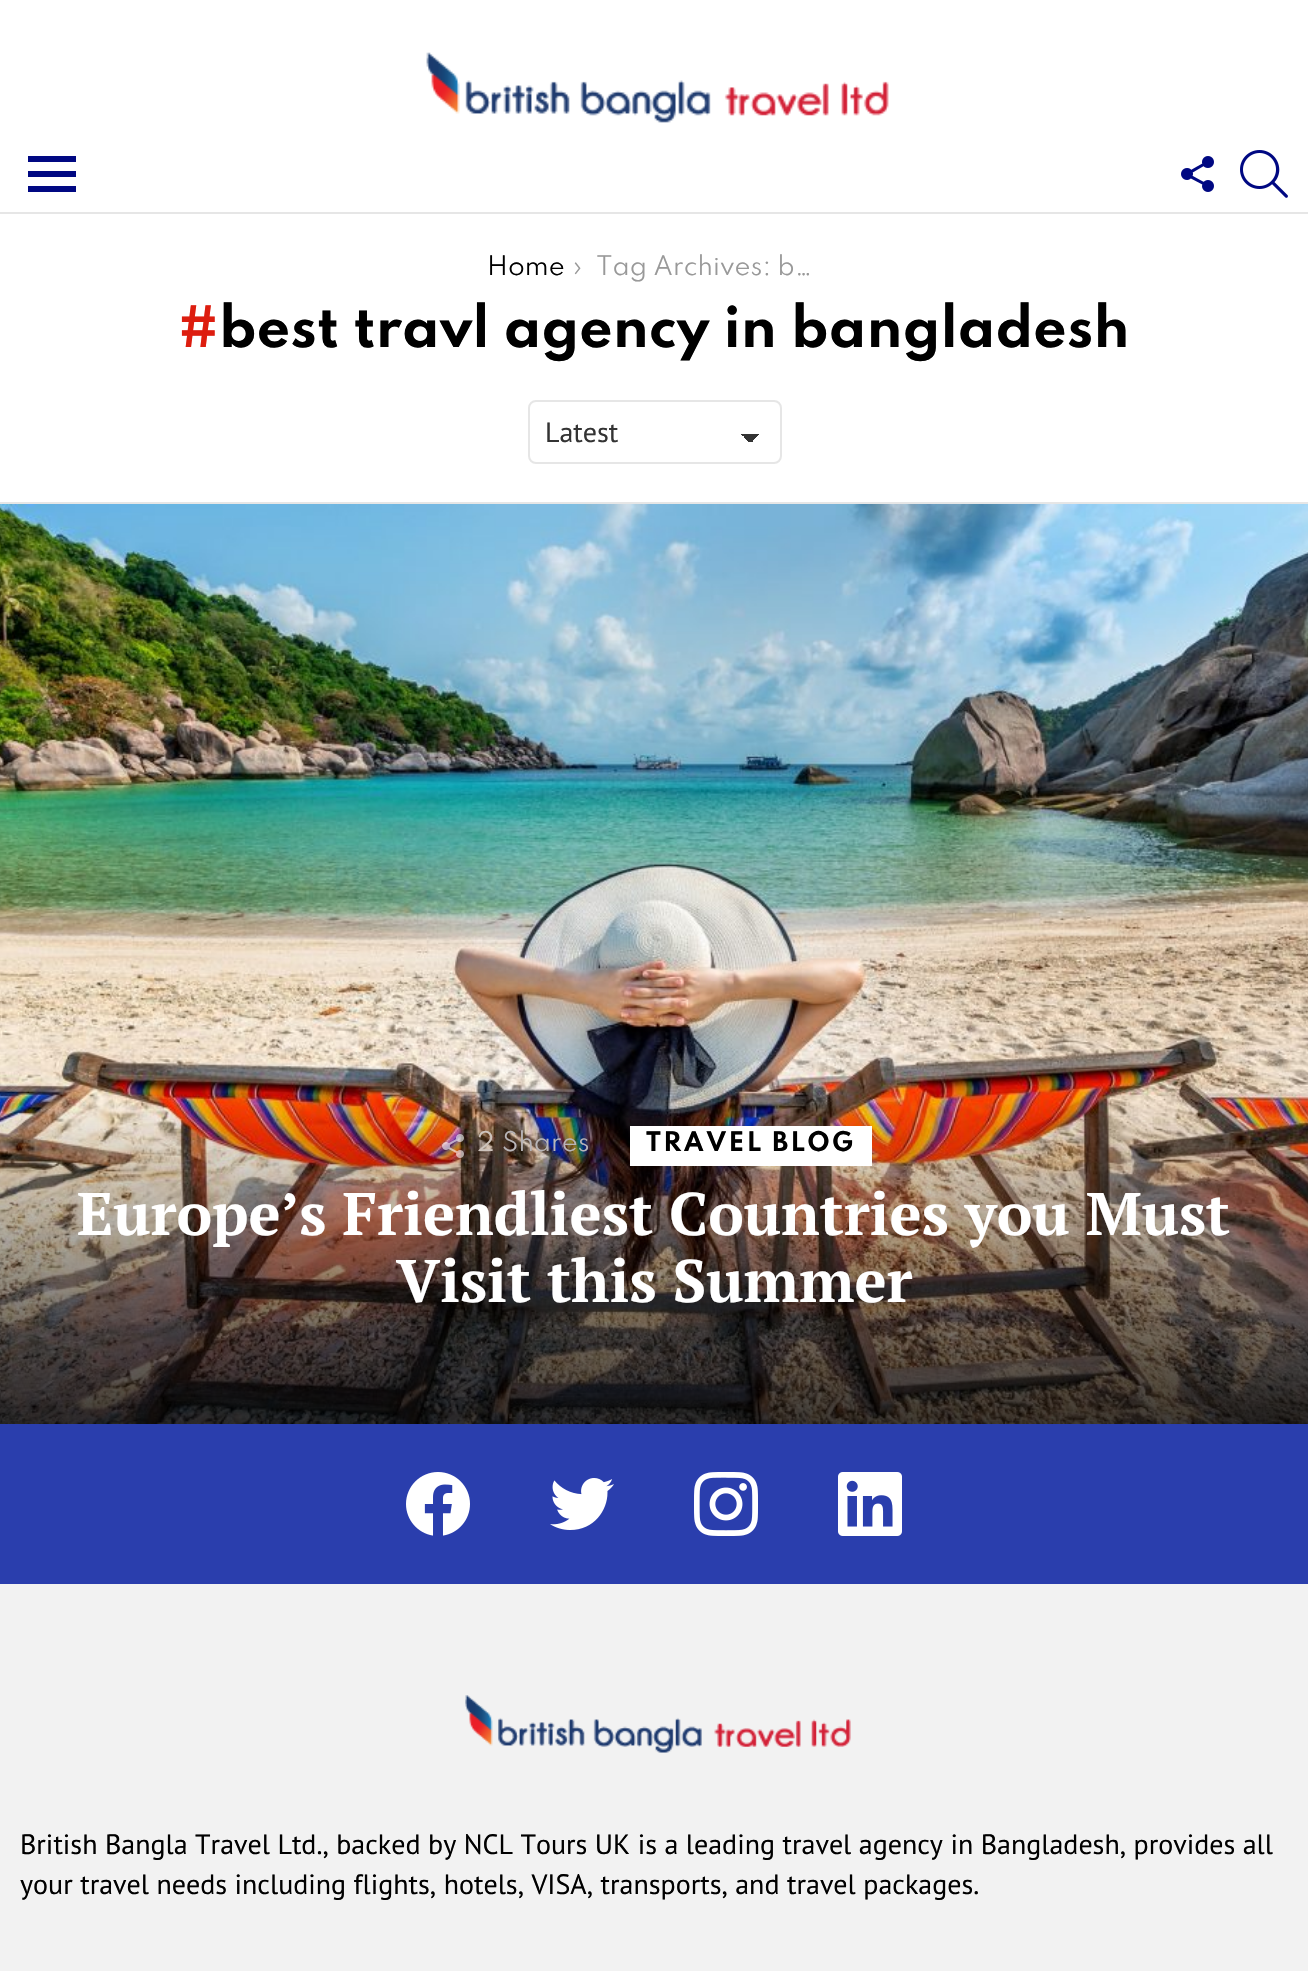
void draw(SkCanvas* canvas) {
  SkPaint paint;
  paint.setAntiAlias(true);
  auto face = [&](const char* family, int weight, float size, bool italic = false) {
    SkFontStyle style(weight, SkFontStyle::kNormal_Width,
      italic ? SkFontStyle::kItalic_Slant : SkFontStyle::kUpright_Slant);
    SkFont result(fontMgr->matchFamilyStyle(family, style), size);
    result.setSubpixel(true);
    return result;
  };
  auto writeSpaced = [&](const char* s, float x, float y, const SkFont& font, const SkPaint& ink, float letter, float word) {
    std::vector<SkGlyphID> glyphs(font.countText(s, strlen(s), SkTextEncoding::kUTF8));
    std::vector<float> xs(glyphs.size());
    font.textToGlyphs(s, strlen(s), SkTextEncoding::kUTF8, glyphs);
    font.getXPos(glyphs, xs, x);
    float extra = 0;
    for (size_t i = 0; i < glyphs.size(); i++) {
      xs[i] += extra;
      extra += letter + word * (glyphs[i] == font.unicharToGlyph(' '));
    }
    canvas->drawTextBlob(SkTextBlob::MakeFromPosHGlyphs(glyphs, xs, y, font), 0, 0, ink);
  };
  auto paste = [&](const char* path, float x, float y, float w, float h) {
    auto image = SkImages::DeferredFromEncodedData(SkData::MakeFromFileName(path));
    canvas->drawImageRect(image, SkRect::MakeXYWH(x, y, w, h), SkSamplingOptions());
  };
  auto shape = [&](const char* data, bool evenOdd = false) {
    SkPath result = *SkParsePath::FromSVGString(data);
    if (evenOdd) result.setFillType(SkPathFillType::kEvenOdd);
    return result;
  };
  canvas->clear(0xffffffff);
  paste("img/1.png", 426, 52, 463, 71);
  paint.setColor(0xff000882);
  canvas->drawPath(shape("M28 156H76V162H28ZM28 171H76V177H28ZM28 186H76V192H28Z"), paint);
  paste("img/2.png", 1181, 156, 33, 36);
  paste("img/3.png", 1240, 150, 48, 48);
  paint.setColor(0xffe6e6e6);
  canvas->drawRect(SkRect::MakeXYWH(0, 212, 1308, 2), paint);
  {
    const SkColor colors[] = {0xff333333, 0xffffffff};
    const float stops[] = {0.5f, 0.5f};
    const SkPoint ends[] = {{751, 434}, {760, 443}};
    paint.setShader(SkGradientShader::MakeLinear(ends, colors, stops, 2, SkTileMode::kClamp));
    paint.setAlpha(255);
  }
  canvas->drawRect(SkRect::MakeXYWH(750, 434, 10, 8), paint);
  {
    const SkColor colors[] = {0xffffffff, 0xff333333};
    const float stops[] = {0.5f, 0.5f};
    const SkPoint ends[] = {{741, 443}, {750, 434}};
    paint.setShader(SkGradientShader::MakeLinear(ends, colors, stops, 2, SkTileMode::kClamp));
    paint.setAlpha(255);
  }
  canvas->drawRect(SkRect::MakeXYWH(740, 434, 10, 8), paint);
  paint.setStroke(true);
  paint.setStrokeWidth(2);
  paint.setShader(nullptr);
  paint.setColor(0xffe6e6e6);
  canvas->drawRoundRect(SkRect::MakeXYWH(529, 401, 252, 62), 7, 7, paint);
  paint.setStroke(false);
  canvas->drawRect(SkRect::MakeXYWH(0, 502, 1308, 2), paint);
  paste("img/4.png", 0, 504, 1308, 920);
  paste("img/5.png", 442, 1134, 22, 24);
  paint.setColor(0xffffffff);
  canvas->drawRect(SkRect::MakeXYWH(630, 1126, 242, 40), paint);
  paint.setColor(0xff2a3ead);
  canvas->drawRect(SkRect::MakeXYWH(0, 1424, 1308, 160), paint);
  paste("img/6.png", 406, 1472, 64, 64);
  paste("img/7.png", 550, 1478, 64, 52);
  paste("img/8.png", 694, 1472, 64, 64);
  paste("img/9.png", 838, 1472, 64, 64);
  paint.setColor(0xfff2f2f2);
  canvas->drawRect(SkRect::MakeXYWH(0, 1584, 1308, 387), paint);
  paste("img/10.png", 465, 1695, 386, 58);
  auto f0 = face("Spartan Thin", 400, 24);
  paint.setColor(0xff000000);
  canvas->drawString("Home", 487, 275, f0, paint);
  paint.setColor(0xff999999);
  canvas->drawString("›", 573, 275, f0, paint);
  canvas->drawString("Tag Archives: b…", 596, 275, f0, paint);
  auto f1 = face("Spartan Thin", 700, 52);
  paint.setColor(0xffdd1d0f);
  canvas->drawString("#", 178, 347, f1, paint);
  paint.setColor(0xff000000);
  canvas->drawString("best travl agency in bangladesh", 219, 347, f1, paint);
  auto f2 = face("PT Sans", 400, 28);
  paint.setColor(0xff333333);
  canvas->drawString("Latest", 545, 442, f2, paint);
  paint.setColor(0xffcec4bd);
  canvas->drawString("2", 477, 1151, f0, paint);
  paint.setColor(0xffb8b5b8);
  canvas->drawString("Shares", 502, 1151, f0, paint);
  auto f3 = face("Spartan Thin", 700, 24);
  paint.setColor(0xff000000);
  writeSpaced("TRAVEL BLOG", 646, 1151, f3, paint, 2.4f, 0);
  auto f4 = face("PT Serif", 700, 60);
  paint.setColor(0xffffffff);
  canvas->drawString("Europe’s Friendliest Countries you Must", 77, 1235, f4, paint);
  canvas->drawString("Visit this Summer", 396, 1302, f4, paint);
  paint.setColor(0xff000000);
  canvas->drawString("British Bangla Travel Ltd., backed by NCL Tours UK is a leading travel agency in Bangladesh, provides all", 20, 1854, f2, paint);
  canvas->drawString("your travel needs including flights, hotels, VISA, transports, and travel packages.", 20, 1894, f2, paint);
}
